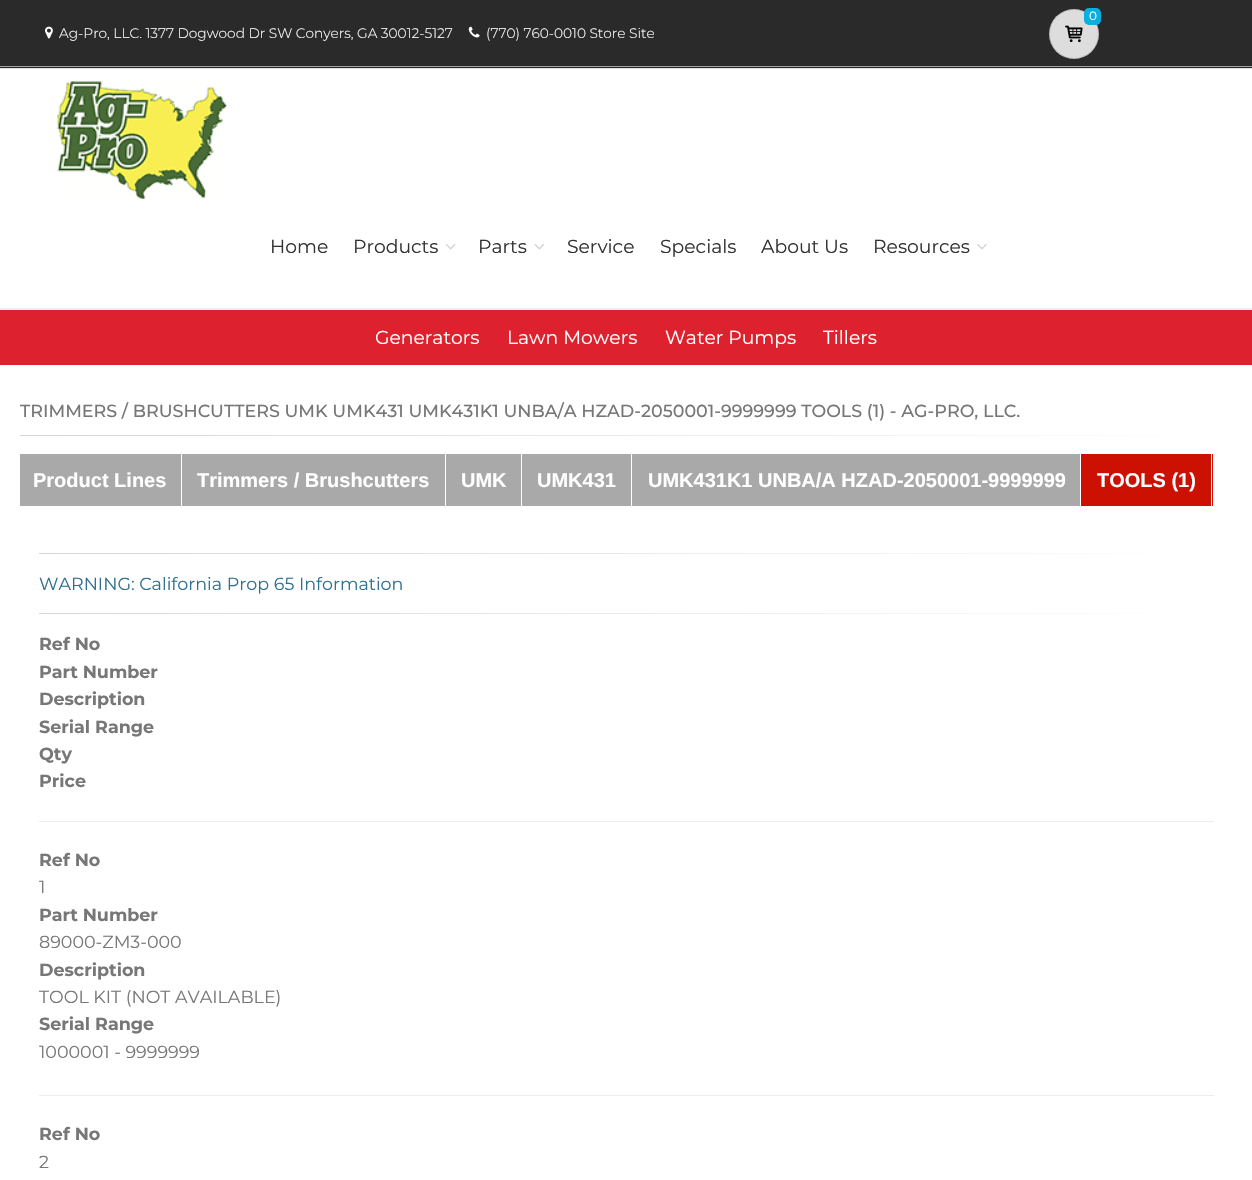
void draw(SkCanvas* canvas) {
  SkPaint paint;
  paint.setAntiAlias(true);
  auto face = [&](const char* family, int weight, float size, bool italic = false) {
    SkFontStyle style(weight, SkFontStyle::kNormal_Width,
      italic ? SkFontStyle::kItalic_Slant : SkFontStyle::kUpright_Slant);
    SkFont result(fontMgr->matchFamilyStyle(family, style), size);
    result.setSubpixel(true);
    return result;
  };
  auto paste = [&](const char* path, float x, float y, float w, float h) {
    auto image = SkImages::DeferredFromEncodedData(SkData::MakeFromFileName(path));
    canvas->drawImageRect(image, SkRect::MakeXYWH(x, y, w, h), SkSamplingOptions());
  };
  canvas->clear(0xffffffff);
  paint.setColor(0xff2a2a2a);
  canvas->drawRect(SkRect::MakeXYWH(0, 0, 1252, 68), paint);
  paint.setColor(0xffa1a1a1);
  canvas->drawRect(SkRect::MakeXYWH(0, 66, 1252, 1), paint);
  paint.setColor(0xffdddddd);
  canvas->drawCircle(1074, 34, 25, paint);
  paint.setStroke(true);
  paint.setStrokeWidth(1);
  paint.setColor(0x26000000);
  canvas->drawCircle(1074, 34, 24.5f, paint);
  paint.setStroke(false);
  paint.setColor(0xff09afdf);
  canvas->drawRoundRect(SkRect::MakeXYWH(1084, 8, 17, 17), 5, 5, paint);
  paste("img/1.png", 1065, 25, 18, 18);
  paste("img/2.png", 45, 26, 8, 13);
  paste("img/3.png", 468, 26, 12, 12);
  paint.setColor(0xffdddddd);
  canvas->drawRect(SkRect::MakeXYWH(0, 68, 1252, 1), paint);
  paint.setColor(0xfff1f1f1);
  canvas->drawRect(SkRect::MakeXYWH(0, 308, 1252, 2), paint);
  paste("img/4.png", 57, 81, 170, 118);
  paste("img/5.png", 445, 244, 11, 6);
  paste("img/6.png", 534, 244, 11, 6);
  paste("img/7.png", 977, 244, 10, 6);
  paint.setColor(0xffde212e);
  canvas->drawRect(SkRect::MakeXYWH(0, 310, 1252, 55), paint);
  {
    const SkColor colors[] = {0xffd6d6d6, 0xffffffff};
    const float stops[] = {0, 1};
    const SkPoint ends[] = {{20, 436}, {1233, 436}};
    paint.setShader(SkGradientShader::MakeLinear(ends, colors, stops, 2, SkTileMode::kClamp));
    paint.setAlpha(255);
  }
  canvas->drawRect(SkRect::MakeXYWH(20, 435, 1139, 1), paint);
  paint.setShader(nullptr);
  {
    const struct { float x, y, w, h; SkColor color; } items[] = {
      {20, 454, 425, 52, 0xffa9a9a9},
      {181, 454, 1, 52, 0xffffffff},
      {446, 454, 634, 52, 0xffa9a9a9},
      {521, 454, 1, 52, 0xffffffff},
      {631, 454, 1, 52, 0xffffffff},
      {1081, 454, 132, 52, 0xffcc1001},
      {1211, 454, 1, 52, 0xffffffff},
    };
    for (auto [x, y, w, h, color] : items) {
      paint.setColor(color);
      canvas->drawRect(SkRect::MakeXYWH(x, y, w, h), paint);
    }
  }
  {
    const SkColor colors[] = {0xffd6d6d6, 0xffffffff};
    const float stops[] = {0, 1};
    const SkPoint ends[] = {{39, 553}, {1214, 553}};
    paint.setShader(SkGradientShader::MakeLinear(ends, colors, stops, 2, SkTileMode::kClamp));
    paint.setAlpha(255);
  }
  canvas->drawRect(SkRect::MakeXYWH(39, 553, 1103, 1), paint);
  {
    const SkColor colors[] = {0xffd6d6d6, 0xffffffff};
    const float stops[] = {0, 1};
    const SkPoint ends[] = {{39, 613}, {1214, 613}};
    paint.setShader(SkGradientShader::MakeLinear(ends, colors, stops, 2, SkTileMode::kClamp));
    paint.setAlpha(255);
  }
  canvas->drawRect(SkRect::MakeXYWH(39, 613, 1103, 1), paint);
  paint.setShader(nullptr);
  paint.setColor(0xffeeeeee);
  canvas->drawRect(SkRect::MakeXYWH(39, 821, 1175, 1), paint);
  canvas->drawRect(SkRect::MakeXYWH(39, 1095, 1175, 1), paint);
  auto f0 = face("Montserrat", 400, 12);
  paint.setColor(0xffffffff);
  canvas->drawString("0", 1089, 20, f0, paint);
  auto f1 = face("Montserrat", 300, 13.75f);
  canvas->drawString("Ag-Pro, LLC. 1377 Dogwood Dr SW Conyers, GA 30012-5127", 59, 38, f1, paint);
  canvas->drawString("(770) 760-0010 Store Site", 486, 38, f1, paint);
  auto f2 = face("Montserrat", 400, 18.75f);
  paint.setColor(0xff333333);
  {
    const struct { const char* s; float x, y; } items[] = {
      {"Home", 270, 253},
      {"Products", 353, 253},
      {"Parts", 478, 253},
      {"Service", 567, 253},
      {"Specials", 660, 253},
      {"About Us", 761, 253},
      {"Resources", 873, 253},
    };
    for (auto [s, x, y] : items) {
      canvas->drawString(s, x, y, f2, paint);
    }
  }
  paint.setColor(0xffffffff);
  {
    const struct { const char* s; float x, y; } items[] = {
      {"Generators", 375, 344},
      {"Lawn Mowers", 507, 344},
      {"Water Pumps", 665, 344},
      {"Tillers", 823, 344},
    };
    for (auto [s, x, y] : items) {
      canvas->drawString(s, x, y, f2, paint);
    }
  }
  auto f3 = face("Montserrat", 500, 17.5f);
  paint.setColor(0xff777777);
  canvas->drawString("TRIMMERS / BRUSHCUTTERS UMK UMK431 UMK431K1 UNBA/A HZAD-2050001-9999999 TOOLS (1) - AG-PRO, LLC.", 20, 417, f3, paint);
  auto f4 = face("Liberation Sans", 700, 20);
  paint.setColor(0xffffffff);
  {
    const struct { const char* s; float x, y; } items[] = {
      {"Product Lines", 33, 487},
      {"Trimmers / Brushcutters", 197, 487},
      {"UMK", 461, 487},
      {"UMK431", 537, 487},
      {"UMK431K1 UNBA/A HZAD-2050001-9999999", 648, 487},
      {"TOOLS (1)", 1097, 487},
    };
    for (auto [s, x, y] : items) {
      canvas->drawString(s, x, y, f4, paint);
    }
  }
  auto f5 = face("Montserrat", 400, 17.5f);
  paint.setColor(0xff31708f);
  canvas->drawString("WARNING: California Prop 65 Information", 39, 590, f5, paint);
  auto f6 = face("Montserrat", 700, 17.5f);
  paint.setColor(0xff777777);
  {
    const struct { const char* s; float x, y; } items[] = {
      {"Ref No", 39, 650},
      {"Part Number", 39, 678},
      {"Description", 39, 705},
      {"Serial Range", 39, 733},
      {"Qty", 39, 760},
      {"Price", 39, 787},
      {"Ref No", 39, 866},
    };
    for (auto [s, x, y] : items) {
      canvas->drawString(s, x, y, f6, paint);
    }
  }
  canvas->drawString("1", 39, 893, f5, paint);
  canvas->drawString("Part Number", 39, 921, f6, paint);
  canvas->drawString("89000-ZM3-000", 39, 948, f5, paint);
  canvas->drawString("Description", 39, 976, f6, paint);
  canvas->drawString("TOOL KIT (NOT AVAILABLE)", 39, 1003, f5, paint);
  canvas->drawString("Serial Range", 39, 1030, f6, paint);
  canvas->drawString("1000001 - 9999999", 39, 1058, f5, paint);
  canvas->drawString("Ref No", 39, 1140, f6, paint);
  canvas->drawString("2", 39, 1168, f5, paint);
}
